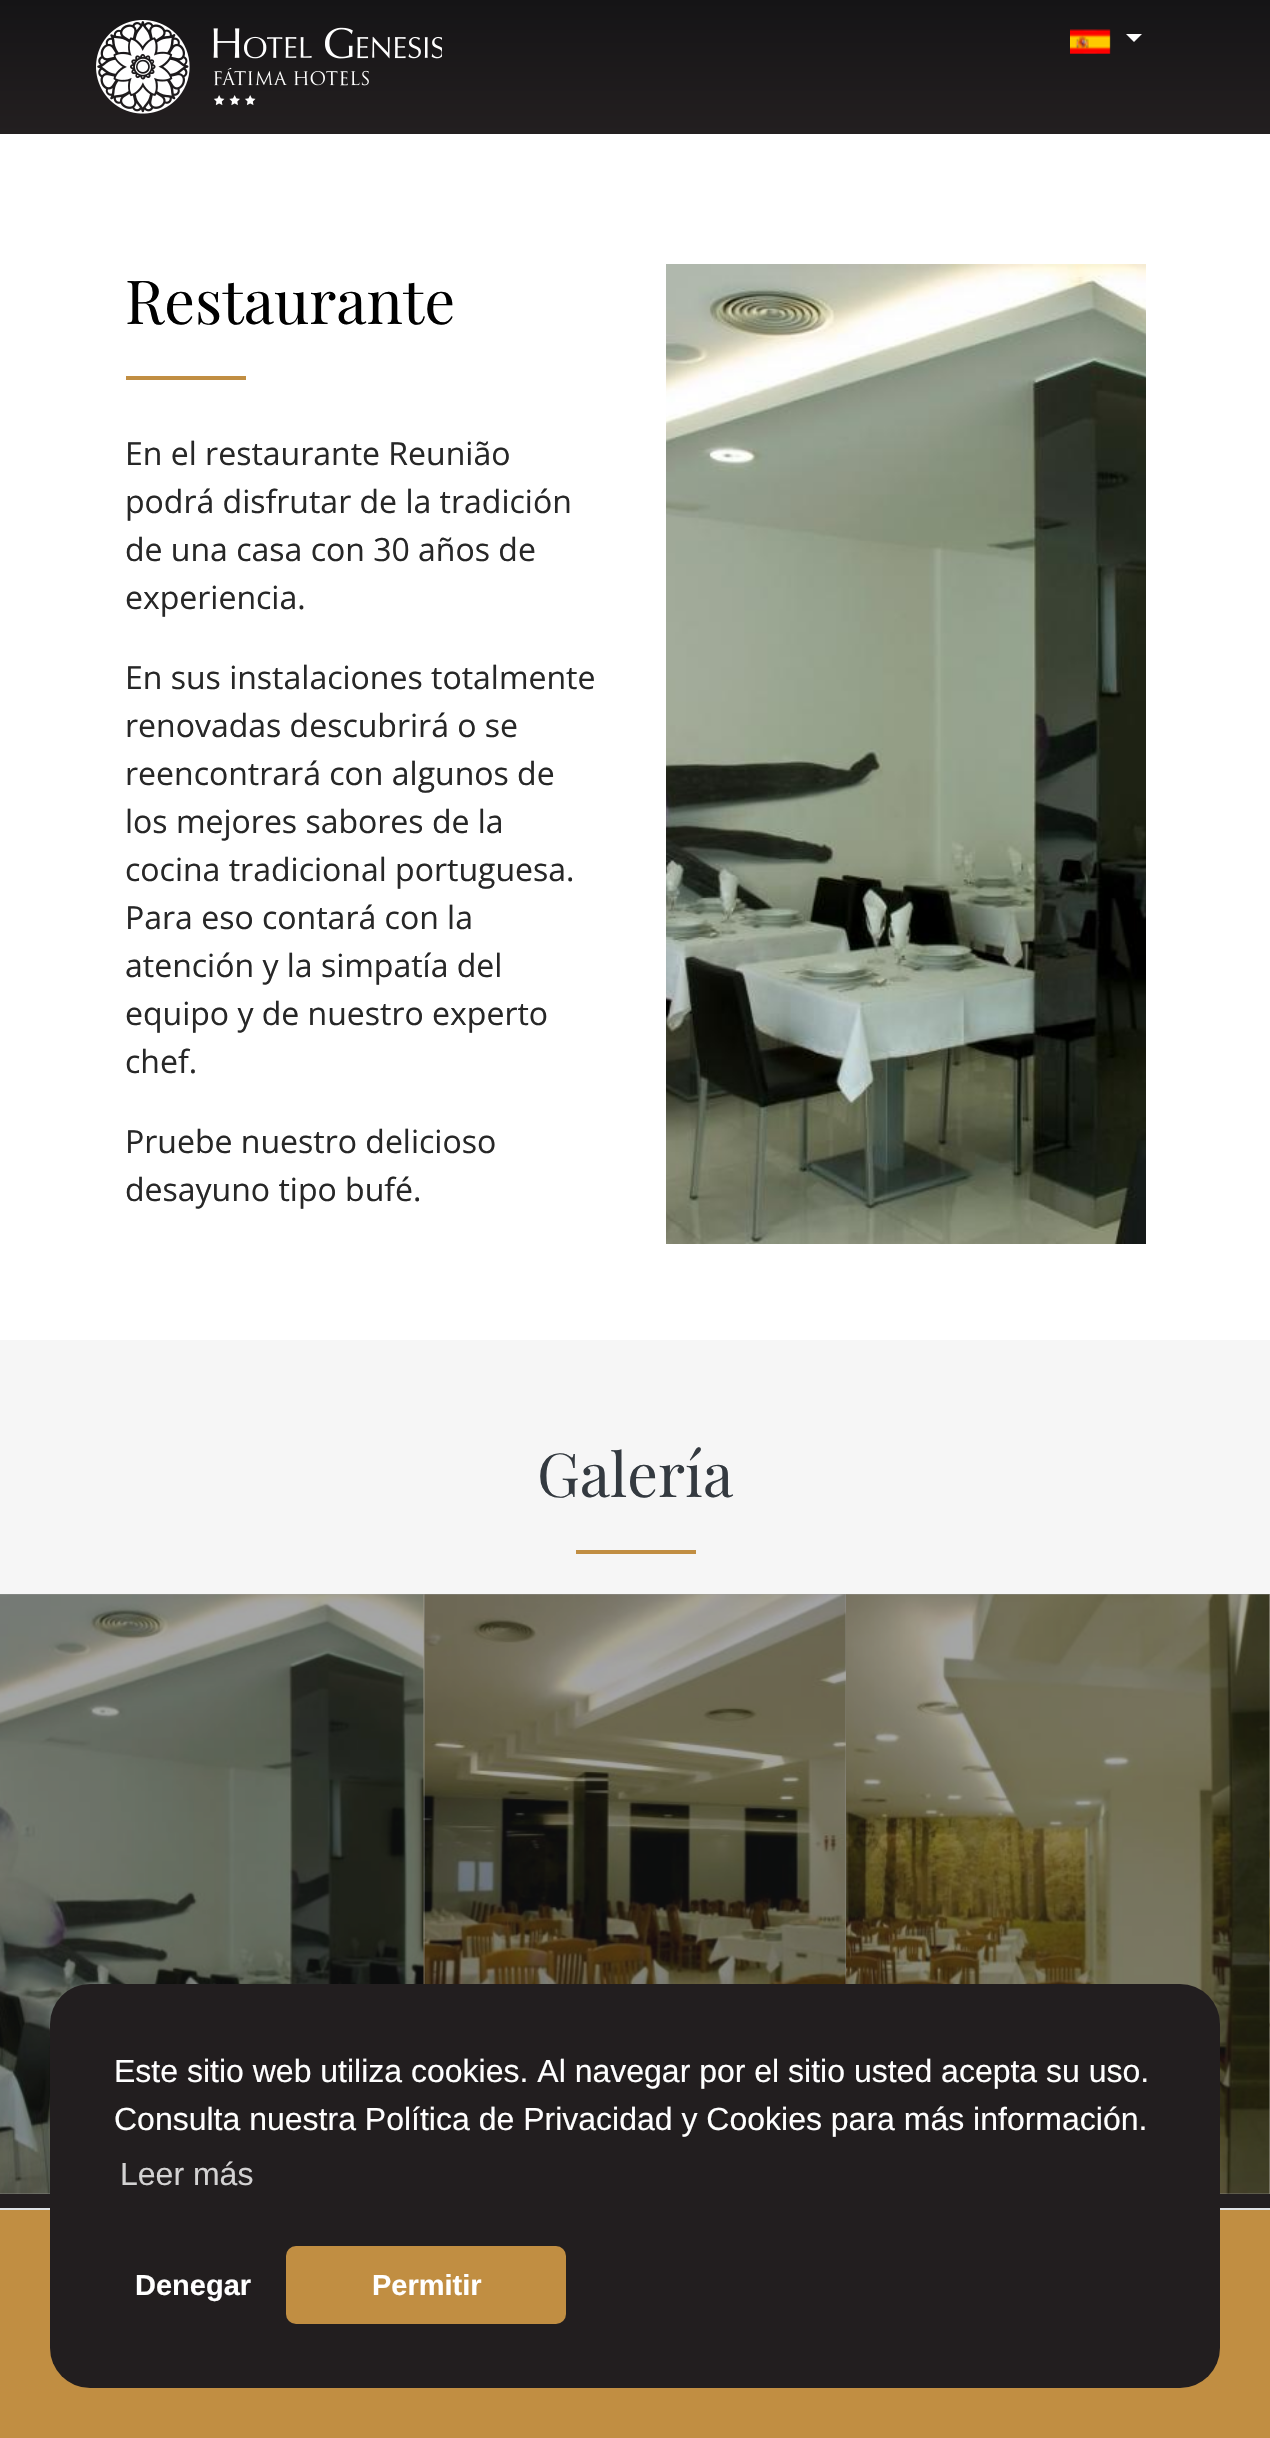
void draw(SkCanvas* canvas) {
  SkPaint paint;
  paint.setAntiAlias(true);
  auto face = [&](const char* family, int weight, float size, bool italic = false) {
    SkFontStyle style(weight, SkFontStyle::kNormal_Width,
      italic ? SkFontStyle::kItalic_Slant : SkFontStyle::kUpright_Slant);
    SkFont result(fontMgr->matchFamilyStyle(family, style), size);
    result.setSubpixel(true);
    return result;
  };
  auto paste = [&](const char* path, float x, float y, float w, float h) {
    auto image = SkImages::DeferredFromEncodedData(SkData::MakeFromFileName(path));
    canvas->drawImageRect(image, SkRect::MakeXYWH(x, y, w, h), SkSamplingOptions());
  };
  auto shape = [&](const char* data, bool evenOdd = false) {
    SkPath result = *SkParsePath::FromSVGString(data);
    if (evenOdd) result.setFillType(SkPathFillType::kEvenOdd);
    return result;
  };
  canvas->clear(0xffffffff);
  {
    const SkColor colors[] = {0xff231f20, 0xff151416};
    const float stops[] = {0, 1};
    const SkPoint ends[] = {{635, 134}, {635, 0}};
    paint.setShader(SkGradientShader::MakeLinear(ends, colors, stops, 2, SkTileMode::kClamp));
    paint.setAlpha(255);
  }
  canvas->drawRect(SkRect::MakeXYWH(0, 0, 1270, 134), paint);
  paste("img/1.png", 96, 20, 346, 94);
  paste("img/2.png", 1070, 29, 41, 25);
  paint.setShader(nullptr);
  paint.setColor(0xffffffff);
  canvas->drawPath(shape("M1126 34H1142L1134 42Z"), paint);
  paint.setColor(0xffc18e42);
  canvas->drawRect(SkRect::MakeXYWH(126, 376, 120, 4), paint);
  paste("img/3.png", 666, 264, 480, 980);
  {
    const struct { float x, y, w, h; SkColor color; } items[] = {
      {0, 1340, 1270, 854, 0xfff6f6f6},
      {424, 1594, 422, 390, 0xffa0a0a0},
      {0, 1594, 424, 600, 0xffa0a0a0},
      {576, 1550, 120, 4, 0xffc18e42},
    };
    for (auto [x, y, w, h, color] : items) {
      paint.setColor(color);
      canvas->drawRect(SkRect::MakeXYWH(x, y, w, h), paint);
    }
  }
  paste("img/4.png", 0, 1594, 424, 600);
  paste("img/5.png", 423, 1594, 424, 390);
  paste("img/6.png", 846, 1594, 424, 600);
  paint.setColor(0x661f2020);
  canvas->drawRect(SkRect::MakeXYWH(846, 1594, 424, 600), paint);
  paste("img/7.png", 1269, 1594, 1, 600);
  {
    const struct { float x, y, w, h; SkColor color; } items[] = {
      {0, 2194, 1270, 14, 0xff231f20},
      {0, 2210, 1270, 228, 0xffc18e42},
      {0, 2208, 1270, 2, 0xffdee2e6},
    };
    for (auto [x, y, w, h, color] : items) {
      paint.setColor(color);
      canvas->drawRect(SkRect::MakeXYWH(x, y, w, h), paint);
    }
  }
  paint.setColor(0xff221e1f);
  canvas->drawRoundRect(SkRect::MakeXYWH(50, 1984, 1170, 404), 40, 40, paint);
  paint.setColor(0xffc18e42);
  canvas->drawRoundRect(SkRect::MakeXYWH(286, 2246, 280, 78), 10, 10, paint);
  auto f0 = face("Playfair Display", 400, 60.75f);
  paint.setColor(0xff000000);
  canvas->drawString("Restaurante", 125, 324, f0, paint);
  auto f1 = face("Open Sans", 400, 32);
  paint.setColor(0xff272727);
  {
    const struct { const char* s; float x, y; } items[] = {
      {"En el restaurante Reunião", 125, 465},
      {"podrá disfrutar de la tradición", 125, 513},
      {"de una casa con 30 años de", 125, 561},
      {"experiencia.", 125, 609},
      {"En sus instalaciones totalmente", 125, 689},
      {"renovadas descubrirá o se", 125, 737},
      {"reencontrará con algunos de", 125, 785},
      {"los mejores sabores de la", 125, 833},
      {"cocina tradicional portuguesa.", 125, 881},
      {"Para eso contará con la", 125, 929},
      {"atención y la simpatía del", 125, 977},
      {"equipo y de nuestro experto", 125, 1025},
      {"chef.", 125, 1073},
      {"Pruebe nuestro delicioso", 125, 1153},
      {"desayuno tipo bufé.", 125, 1201},
    };
    for (auto [s, x, y] : items) {
      canvas->drawString(s, x, y, f1, paint);
    }
  }
  paint.setColor(0xff343a40);
  canvas->drawString("Galería", 537, 1497, f0, paint);
  auto f2 = face("Liberation Sans", 400, 32);
  paint.setColor(0xffffffff);
  canvas->drawString("Este sitio web utiliza cookies. Al navegar por el sitio usted acepta su uso.", 114, 2082, f2, paint);
  canvas->drawString("Consulta nuestra Política de Privacidad y Cookies para más información.", 114, 2130, f2, paint);
  paint.setColor(0xffd3d2d2);
  canvas->drawString("Leer más", 120, 2185, f2, paint);
  auto f3 = face("Liberation Sans", 700, 29);
  paint.setColor(0xffffffff);
  canvas->drawString("Denegar", 135, 2295, f3, paint);
  canvas->drawString("Permitir", 372, 2295, f3, paint);
}
